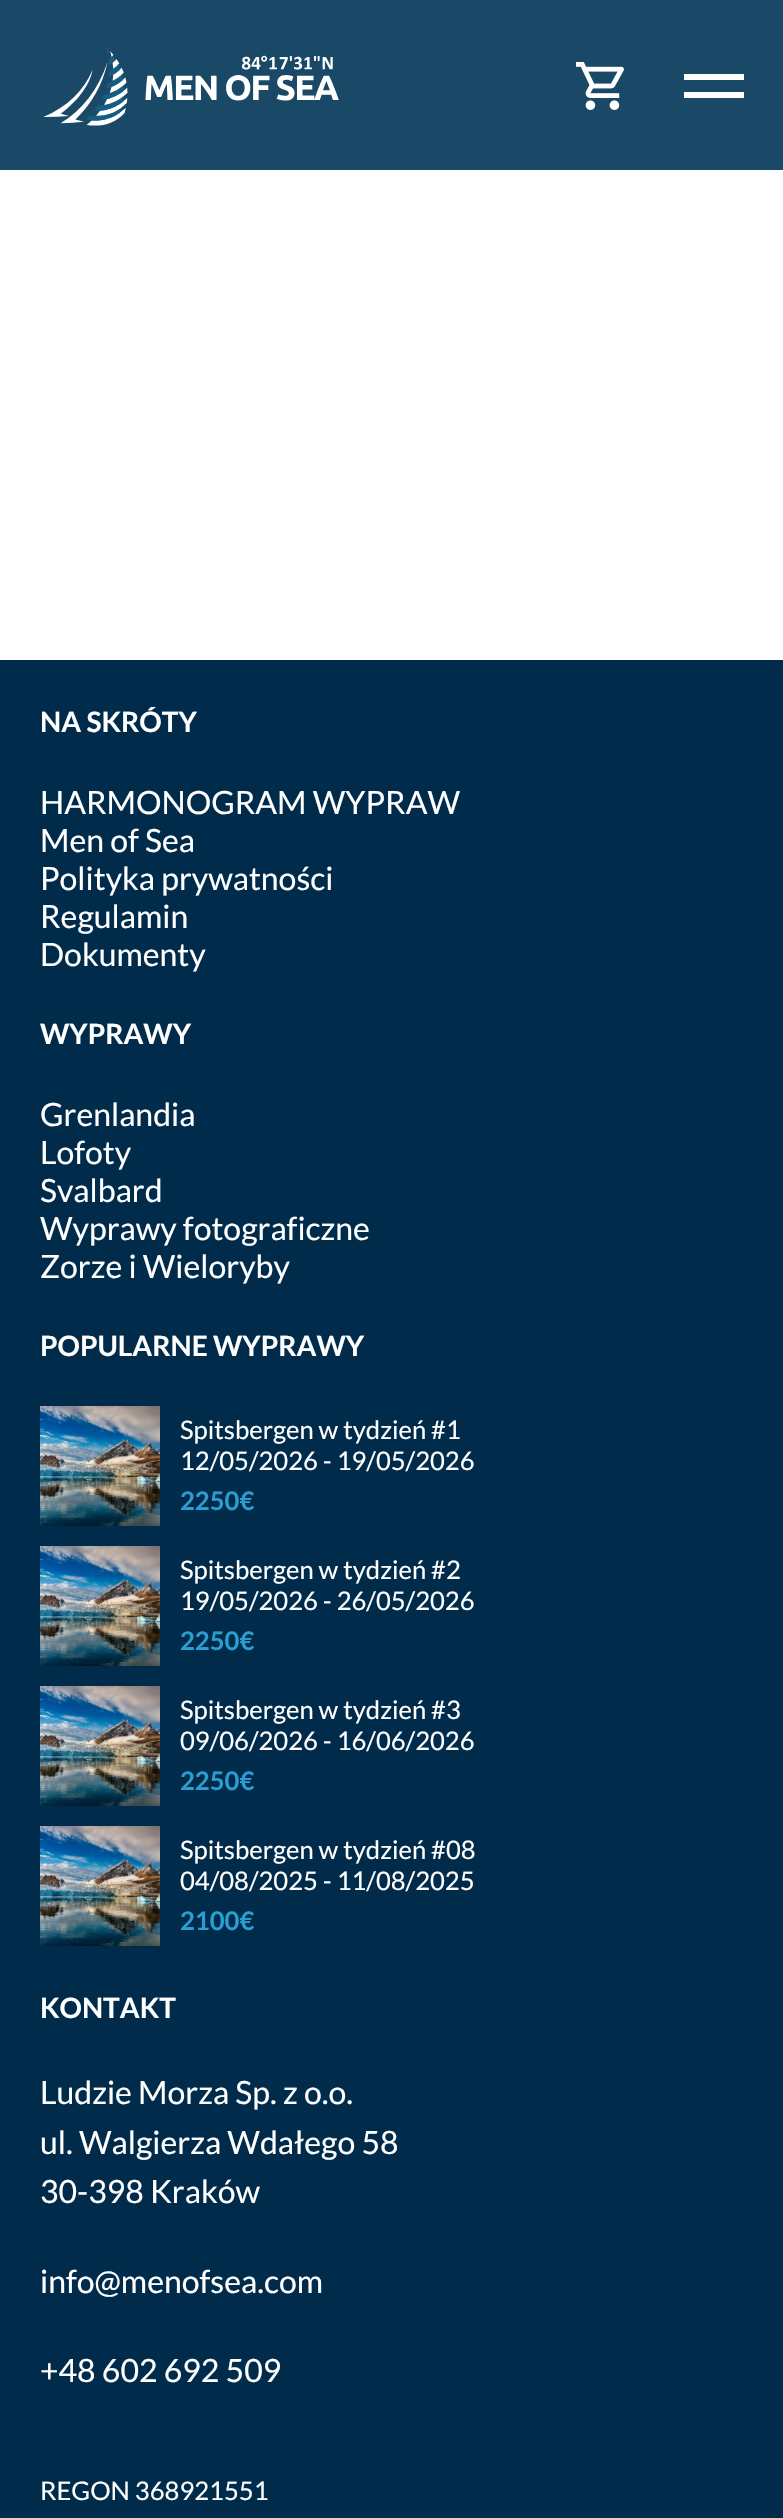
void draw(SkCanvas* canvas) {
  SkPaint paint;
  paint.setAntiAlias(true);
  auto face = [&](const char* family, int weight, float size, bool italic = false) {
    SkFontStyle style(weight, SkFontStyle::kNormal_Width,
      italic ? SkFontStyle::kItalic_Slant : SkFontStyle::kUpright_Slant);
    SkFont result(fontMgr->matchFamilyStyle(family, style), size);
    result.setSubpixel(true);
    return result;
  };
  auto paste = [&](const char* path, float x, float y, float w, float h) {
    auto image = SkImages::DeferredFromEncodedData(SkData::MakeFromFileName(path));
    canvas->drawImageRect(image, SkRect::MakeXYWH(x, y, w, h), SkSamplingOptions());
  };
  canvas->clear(0xffffffff);
  paint.setColor(0xff1a4867);
  canvas->drawRect(SkRect::MakeXYWH(0, 0, 783, 170), paint);
  paste("img/1.png", 43, 48, 296, 78);
  paste("img/2.png", 576, 62, 48, 48);
  {
    const struct { float x, y, w, h; SkColor color; } items[] = {
      {684, 74, 60, 6, 0xffffffff},
      {684, 92, 60, 6, 0xffffffff},
      {0, 660, 783, 1858, 0xff002b4a},
    };
    for (auto [x, y, w, h, color] : items) {
      paint.setColor(color);
      canvas->drawRect(SkRect::MakeXYWH(x, y, w, h), paint);
    }
  }
  paste("img/3.png", 40, 1406, 120, 120);
  paste("img/3.png", 40, 1546, 120, 120);
  paste("img/3.png", 40, 1686, 120, 120);
  paste("img/3.png", 40, 1826, 120, 120);
  auto f0 = face("Lato", 700, 28);
  paint.setColor(0xffffffff);
  canvas->drawString("NA SKRÓTY", 40, 732, f0, paint);
  auto f1 = face("Lato", 400, 32);
  {
    const struct { const char* s; float x, y; } items[] = {
      {"HARMONOGRAM WYPRAW", 40, 814},
      {"Men of Sea", 40, 852},
      {"Polityka prywatności", 40, 890},
      {"Regulamin", 40, 928},
      {"Dokumenty", 40, 966},
    };
    for (auto [s, x, y] : items) {
      canvas->drawString(s, x, y, f1, paint);
    }
  }
  canvas->drawString("WYPRAWY", 40, 1044, f0, paint);
  {
    const struct { const char* s; float x, y; } items[] = {
      {"Grenlandia", 40, 1126},
      {"Lofoty", 40, 1164},
      {"Svalbard", 40, 1202},
      {"Wyprawy fotograficzne", 40, 1240},
      {"Zorze i Wieloryby", 40, 1278},
    };
    for (auto [s, x, y] : items) {
      canvas->drawString(s, x, y, f1, paint);
    }
  }
  canvas->drawString("POPULARNE WYPRAWY", 40, 1356, f0, paint);
  auto f2 = face("Lato", 400, 25.6f);
  canvas->drawString("Spitsbergen w tydzień #1", 180, 1439, f2, paint);
  canvas->drawString("12/05/2026 - 19/05/2026", 180, 1470, f2, paint);
  auto f3 = face("Lato", 700, 25.6f);
  paint.setColor(0xff2b9ed1);
  canvas->drawString("2250€", 180, 1510, f3, paint);
  paint.setColor(0xffffffff);
  canvas->drawString("Spitsbergen w tydzień #2", 180, 1579, f2, paint);
  canvas->drawString("19/05/2026 - 26/05/2026", 180, 1610, f2, paint);
  paint.setColor(0xff2b9ed1);
  canvas->drawString("2250€", 180, 1650, f3, paint);
  paint.setColor(0xffffffff);
  canvas->drawString("Spitsbergen w tydzień #3", 180, 1719, f2, paint);
  canvas->drawString("09/06/2026 - 16/06/2026", 180, 1750, f2, paint);
  paint.setColor(0xff2b9ed1);
  canvas->drawString("2250€", 180, 1790, f3, paint);
  paint.setColor(0xffffffff);
  canvas->drawString("Spitsbergen w tydzień #08", 180, 1859, f2, paint);
  canvas->drawString("04/08/2025 - 11/08/2025", 180, 1890, f2, paint);
  paint.setColor(0xff2b9ed1);
  canvas->drawString("2100€", 180, 1930, f3, paint);
  paint.setColor(0xffffffff);
  canvas->drawString("KONTAKT", 40, 2018, f0, paint);
  {
    const struct { const char* s; float x, y; } items[] = {
      {"Ludzie Morza Sp. z o.o.", 40, 2104},
      {"ul. Walgierza Wdałego 58", 40, 2154},
      {"30-398 Kraków", 40, 2203},
      {"info@menofsea.com", 40, 2293},
      {"+48 602 692 509", 40, 2382},
    };
    for (auto [s, x, y] : items) {
      canvas->drawString(s, x, y, f1, paint);
    }
  }
  canvas->drawString("REGON 368921551", 40, 2500, f2, paint);
}
